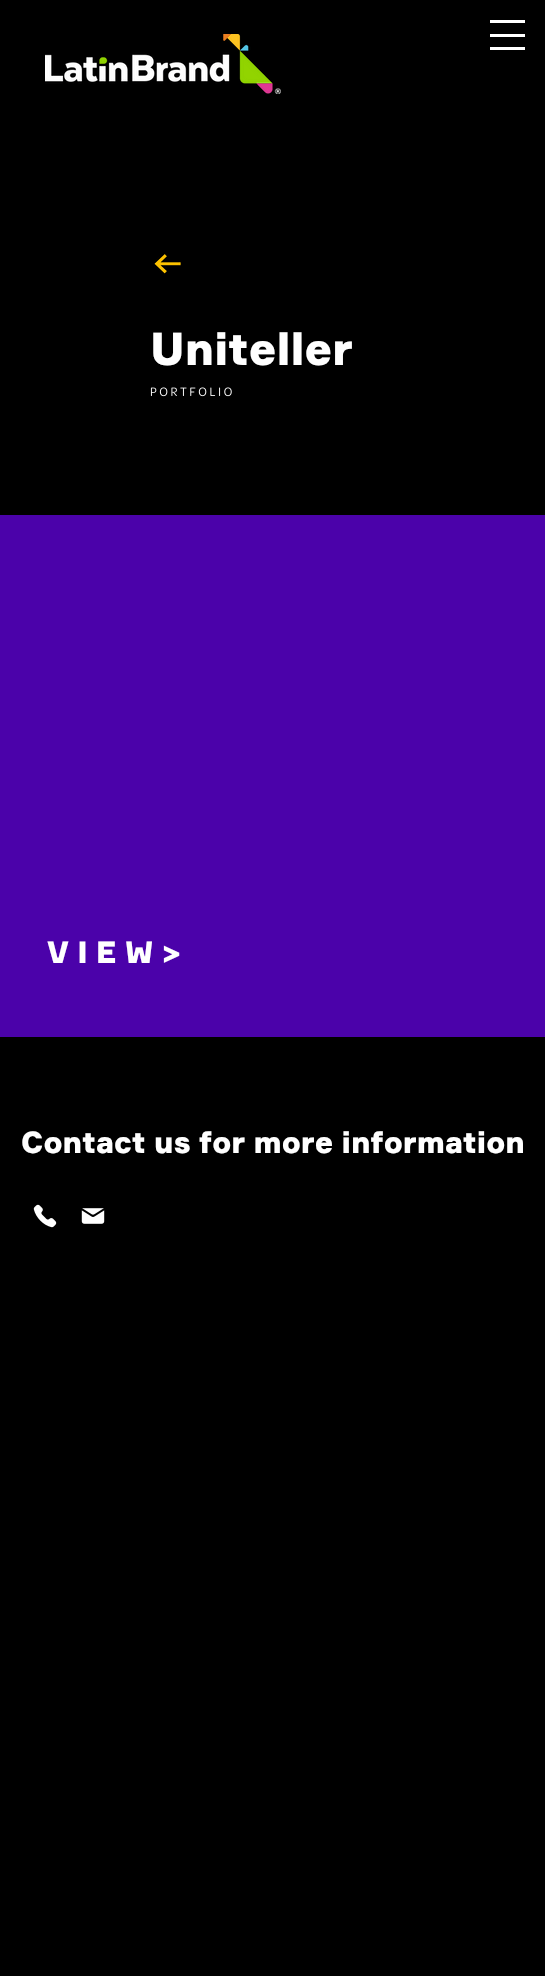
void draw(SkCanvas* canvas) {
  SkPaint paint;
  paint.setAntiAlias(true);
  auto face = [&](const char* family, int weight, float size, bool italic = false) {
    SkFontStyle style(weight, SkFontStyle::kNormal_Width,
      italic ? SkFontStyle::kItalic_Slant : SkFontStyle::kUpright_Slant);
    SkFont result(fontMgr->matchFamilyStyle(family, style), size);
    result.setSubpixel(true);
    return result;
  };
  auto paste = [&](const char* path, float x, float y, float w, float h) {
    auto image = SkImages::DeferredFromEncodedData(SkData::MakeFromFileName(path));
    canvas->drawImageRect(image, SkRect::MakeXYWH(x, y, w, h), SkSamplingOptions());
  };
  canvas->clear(0xff000000);
  paste("img/1.png", 45, 34, 236, 60);
  {
    const struct { float x, y, w, h; SkColor color; } items[] = {
      {490, 20, 35, 3, 0xffffffff},
      {490, 34, 35, 3, 0xffffffff},
      {490, 47, 35, 3, 0xffffffff},
    };
    for (auto [x, y, w, h, color] : items) {
      paint.setColor(color);
      canvas->drawRect(SkRect::MakeXYWH(x, y, w, h), paint);
    }
  }
  paste("img/2.png", 154, 254, 27, 20);
  paste("img/3.png", 150, 387, 82, 10);
  paint.setColor(0xff4b02aa);
  canvas->drawRect(SkRect::MakeXYWH(0, 515, 545, 522), paint);
  paste("img/4.png", 33, 1204, 24, 24);
  paste("img/5.png", 81, 1208, 24, 16);
  auto f0 = face("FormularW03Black", 900, 45);
  paint.setColor(0xffffffff);
  canvas->drawString("Uniteller", 150, 365, f0, paint);
  auto f1 = face("FormularW03Black", 900, 30);
  canvas->drawString("V I E W >", 47, 963, f1, paint);
  canvas->drawString("Contact us for more information", 21, 1153, f1, paint);
}
